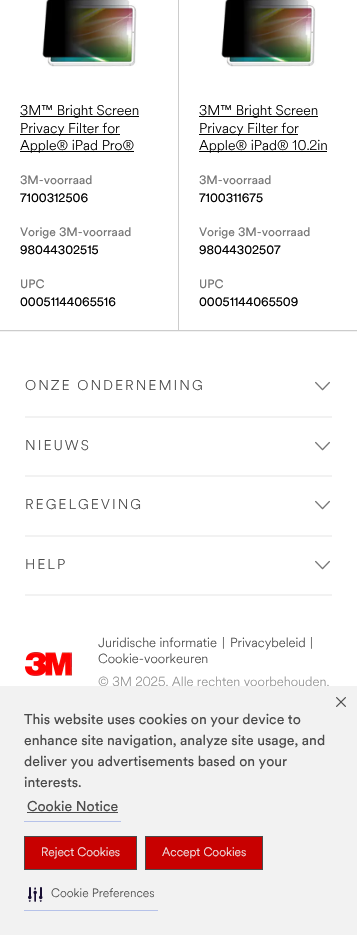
void draw(SkCanvas* canvas) {
  SkPaint paint;
  paint.setAntiAlias(true);
  auto face = [&](const char* family, int weight, float size, bool italic = false) {
    SkFontStyle style(weight, SkFontStyle::kNormal_Width,
      italic ? SkFontStyle::kItalic_Slant : SkFontStyle::kUpright_Slant);
    SkFont result(fontMgr->matchFamilyStyle(family, style), size);
    result.setSubpixel(true);
    return result;
  };
  auto writeSpaced = [&](const char* s, float x, float y, const SkFont& font, const SkPaint& ink, float letter, float word) {
    std::vector<SkGlyphID> glyphs(font.countText(s, strlen(s), SkTextEncoding::kUTF8));
    std::vector<float> xs(glyphs.size());
    font.textToGlyphs(s, strlen(s), SkTextEncoding::kUTF8, glyphs);
    font.getXPos(glyphs, xs, x);
    float extra = 0;
    for (size_t i = 0; i < glyphs.size(); i++) {
      xs[i] += extra;
      extra += letter + word * (glyphs[i] == font.unicharToGlyph(' '));
    }
    canvas->drawTextBlob(SkTextBlob::MakeFromPosHGlyphs(glyphs, xs, y, font), 0, 0, ink);
  };
  auto paste = [&](const char* path, float x, float y, float w, float h) {
    auto image = SkImages::DeferredFromEncodedData(SkData::MakeFromFileName(path));
    canvas->drawImageRect(image, SkRect::MakeXYWH(x, y, w, h), SkSamplingOptions());
  };
  canvas->clear(0xffffffff);
  paint.setColor(0xffcccccc);
  canvas->drawRect(SkRect::MakeXYWH(178, 0, 1, 331), paint);
  canvas->drawRect(SkRect::MakeXYWH(0, 330, 357, 1), paint);
  paste("img/1.png", 42, 0, 95, 67);
  {
    const struct { float x, y, w, h; SkColor color; } items[] = {
      {20, 116, 119, 1, 0xff000000},
      {20, 134, 100, 1, 0xff000000},
      {20, 151, 114, 1, 0xff000000},
    };
    for (auto [x, y, w, h, color] : items) {
      paint.setColor(color);
      canvas->drawRect(SkRect::MakeXYWH(x, y, w, h), paint);
    }
  }
  paste("img/1.png", 221, 0, 95, 67);
  {
    const struct { float x, y, w, h; SkColor color; } items[] = {
      {199, 116, 119, 1, 0xff000000},
      {199, 134, 99, 1, 0xff000000},
      {199, 151, 128, 1, 0xff000000},
      {0, 331, 357, 1, 0xfff2f2f2},
      {25, 416, 307, 2, 0xfff2f2f2},
    };
    for (auto [x, y, w, h, color] : items) {
      paint.setColor(color);
      canvas->drawRect(SkRect::MakeXYWH(x, y, w, h), paint);
    }
  }
  paste("img/2.png", 315, 381, 15, 10);
  canvas->drawRect(SkRect::MakeXYWH(25, 475, 307, 2), paint);
  paste("img/2.png", 315, 441, 15, 10);
  canvas->drawRect(SkRect::MakeXYWH(25, 535, 307, 2), paint);
  paste("img/2.png", 315, 500, 15, 10);
  canvas->drawRect(SkRect::MakeXYWH(25, 594, 307, 2), paint);
  paste("img/2.png", 315, 560, 15, 10);
  paste("img/3.png", 25, 652, 47, 24);
  auto f0 = face("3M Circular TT", 300, 14);
  paint.setColor(0xff000000);
  {
    const struct { const char* s; float x, y; } items[] = {
      {"3M™ Bright Screen", 20, 115},
      {"Privacy Filter for", 20, 133},
      {"Apple® iPad Pro®", 20, 150},
    };
    for (auto [s, x, y] : items) {
      canvas->drawString(s, x, y, f0, paint);
    }
  }
  auto f1 = face("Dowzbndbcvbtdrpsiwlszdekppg", 400, 12);
  paint.setColor(0xff767676);
  canvas->drawString("3M-voorraad", 20, 184, f1, paint);
  paint.setColor(0xff000000);
  canvas->drawString("7100312506", 20, 202, f1, paint);
  paint.setColor(0xff767676);
  canvas->drawString("Vorige 3M-voorraad", 20, 236, f1, paint);
  paint.setColor(0xff000000);
  canvas->drawString("98044302515", 20, 254, f1, paint);
  paint.setColor(0xff767676);
  canvas->drawString("UPC", 20, 288, f1, paint);
  paint.setColor(0xff000000);
  canvas->drawString("00051144065516", 20, 306, f1, paint);
  {
    const struct { const char* s; float x, y; } items[] = {
      {"3M™ Bright Screen", 199, 115},
      {"Privacy Filter for", 199, 133},
      {"Apple® iPad® 10.2in", 199, 150},
    };
    for (auto [s, x, y] : items) {
      canvas->drawString(s, x, y, f0, paint);
    }
  }
  paint.setColor(0xff767676);
  canvas->drawString("3M-voorraad", 199, 184, f1, paint);
  paint.setColor(0xff000000);
  canvas->drawString("7100311675", 199, 202, f1, paint);
  paint.setColor(0xff767676);
  canvas->drawString("Vorige 3M-voorraad", 199, 236, f1, paint);
  paint.setColor(0xff000000);
  canvas->drawString("98044302507", 199, 254, f1, paint);
  paint.setColor(0xff767676);
  canvas->drawString("UPC", 199, 288, f1, paint);
  paint.setColor(0xff000000);
  canvas->drawString("00051144065509", 199, 306, f1, paint);
  paint.setColor(0xff4b4b4b);
  {
    const struct { const char* s; float x, y; } items[] = {
      {"ONZE ONDERNEMING", 25, 390},
      {"NIEUWS", 25, 450},
      {"REGELGEVING", 25, 509},
      {"HELP", 25, 569},
    };
    for (auto [s, x, y] : items) {
      writeSpaced(s, x, y, f0, paint, 2, 0);
    }
  }
  auto f2 = face("3M Circular TT", 300, 13);
  {
    const struct { const char* s; float x, y; } items[] = {
      {"Juridische informatie", 98, 647},
      {"|", 222, 647},
      {"Privacybeleid", 230, 647},
      {"|", 310, 647},
      {"Cookie-voorkeuren", 98, 663},
    };
    for (auto [s, x, y] : items) {
      canvas->drawString(s, x, y, f2, paint);
    }
  }
  paint.setColor(0xff939393);
  canvas->drawString("© 3M 2025. Alle rechten voorbehouden.", 98, 686, f2, paint);
  paint.setColor(0xfff2f2f2);
  canvas->drawRect(SkRect::MakeXYWH(0, 686, 357, 249), paint);
  auto f3 = face("Dowzbndbcvbtdrpsiwlszdekppg", 400, 14);
  paint.setColor(0xff4b4b4b);
  {
    const struct { const char* s; float x, y; } items[] = {
      {"This website uses cookies on your device to", 24, 724},
      {"enhance site navigation, analyze site usage, and", 24, 745},
      {"deliver you advertisements based on your", 24, 766},
      {"interests.", 24, 787},
    };
    for (auto [s, x, y] : items) {
      canvas->drawString(s, x, y, f3, paint);
    }
  }
  paint.setColor(0xffb6c2e9);
  canvas->drawRect(SkRect::MakeXYWH(24, 821, 97, 1), paint);
  paint.setColor(0xff4b4b4b);
  canvas->drawString("Cookie Notice", 27, 811, f3, paint);
  canvas->drawRect(SkRect::MakeXYWH(27, 812, 91, 1), paint);
  paste("img/4.png", 336, 697, 10, 10);
  paint.setColor(0xffc80000);
  canvas->drawRect(SkRect::MakeXYWH(24.5f, 836.5f, 112, 33), paint);
  paint.setStroke(true);
  paint.setStrokeWidth(1);
  paint.setColor(0xff4b4b4b);
  canvas->drawRect(SkRect::MakeXYWH(24.5f, 836.5f, 112, 33), paint);
  auto f4 = face("3M Circular TT", 300, 12);
  paint.setStroke(false);
  paint.setColor(0xfff2f2f2);
  canvas->drawString("Reject Cookies", 41, 856, f4, paint);
  paint.setColor(0xffc80000);
  canvas->drawRect(SkRect::MakeXYWH(145.5f, 836.5f, 117, 33), paint);
  paint.setStroke(true);
  paint.setColor(0xff4b4b4b);
  canvas->drawRect(SkRect::MakeXYWH(145.5f, 836.5f, 117, 33), paint);
  paint.setStroke(false);
  paint.setColor(0xfff2f2f2);
  canvas->drawString("Accept Cookies", 162, 856, f4, paint);
  paint.setColor(0xffb6c2e9);
  canvas->drawRect(SkRect::MakeXYWH(24, 910, 134, 1), paint);
  paste("img/5.png", 28, 887, 15, 15);
  paint.setColor(0xff4b4b4b);
  canvas->drawString("Cookie Preferences", 51, 897, f4, paint);
}
